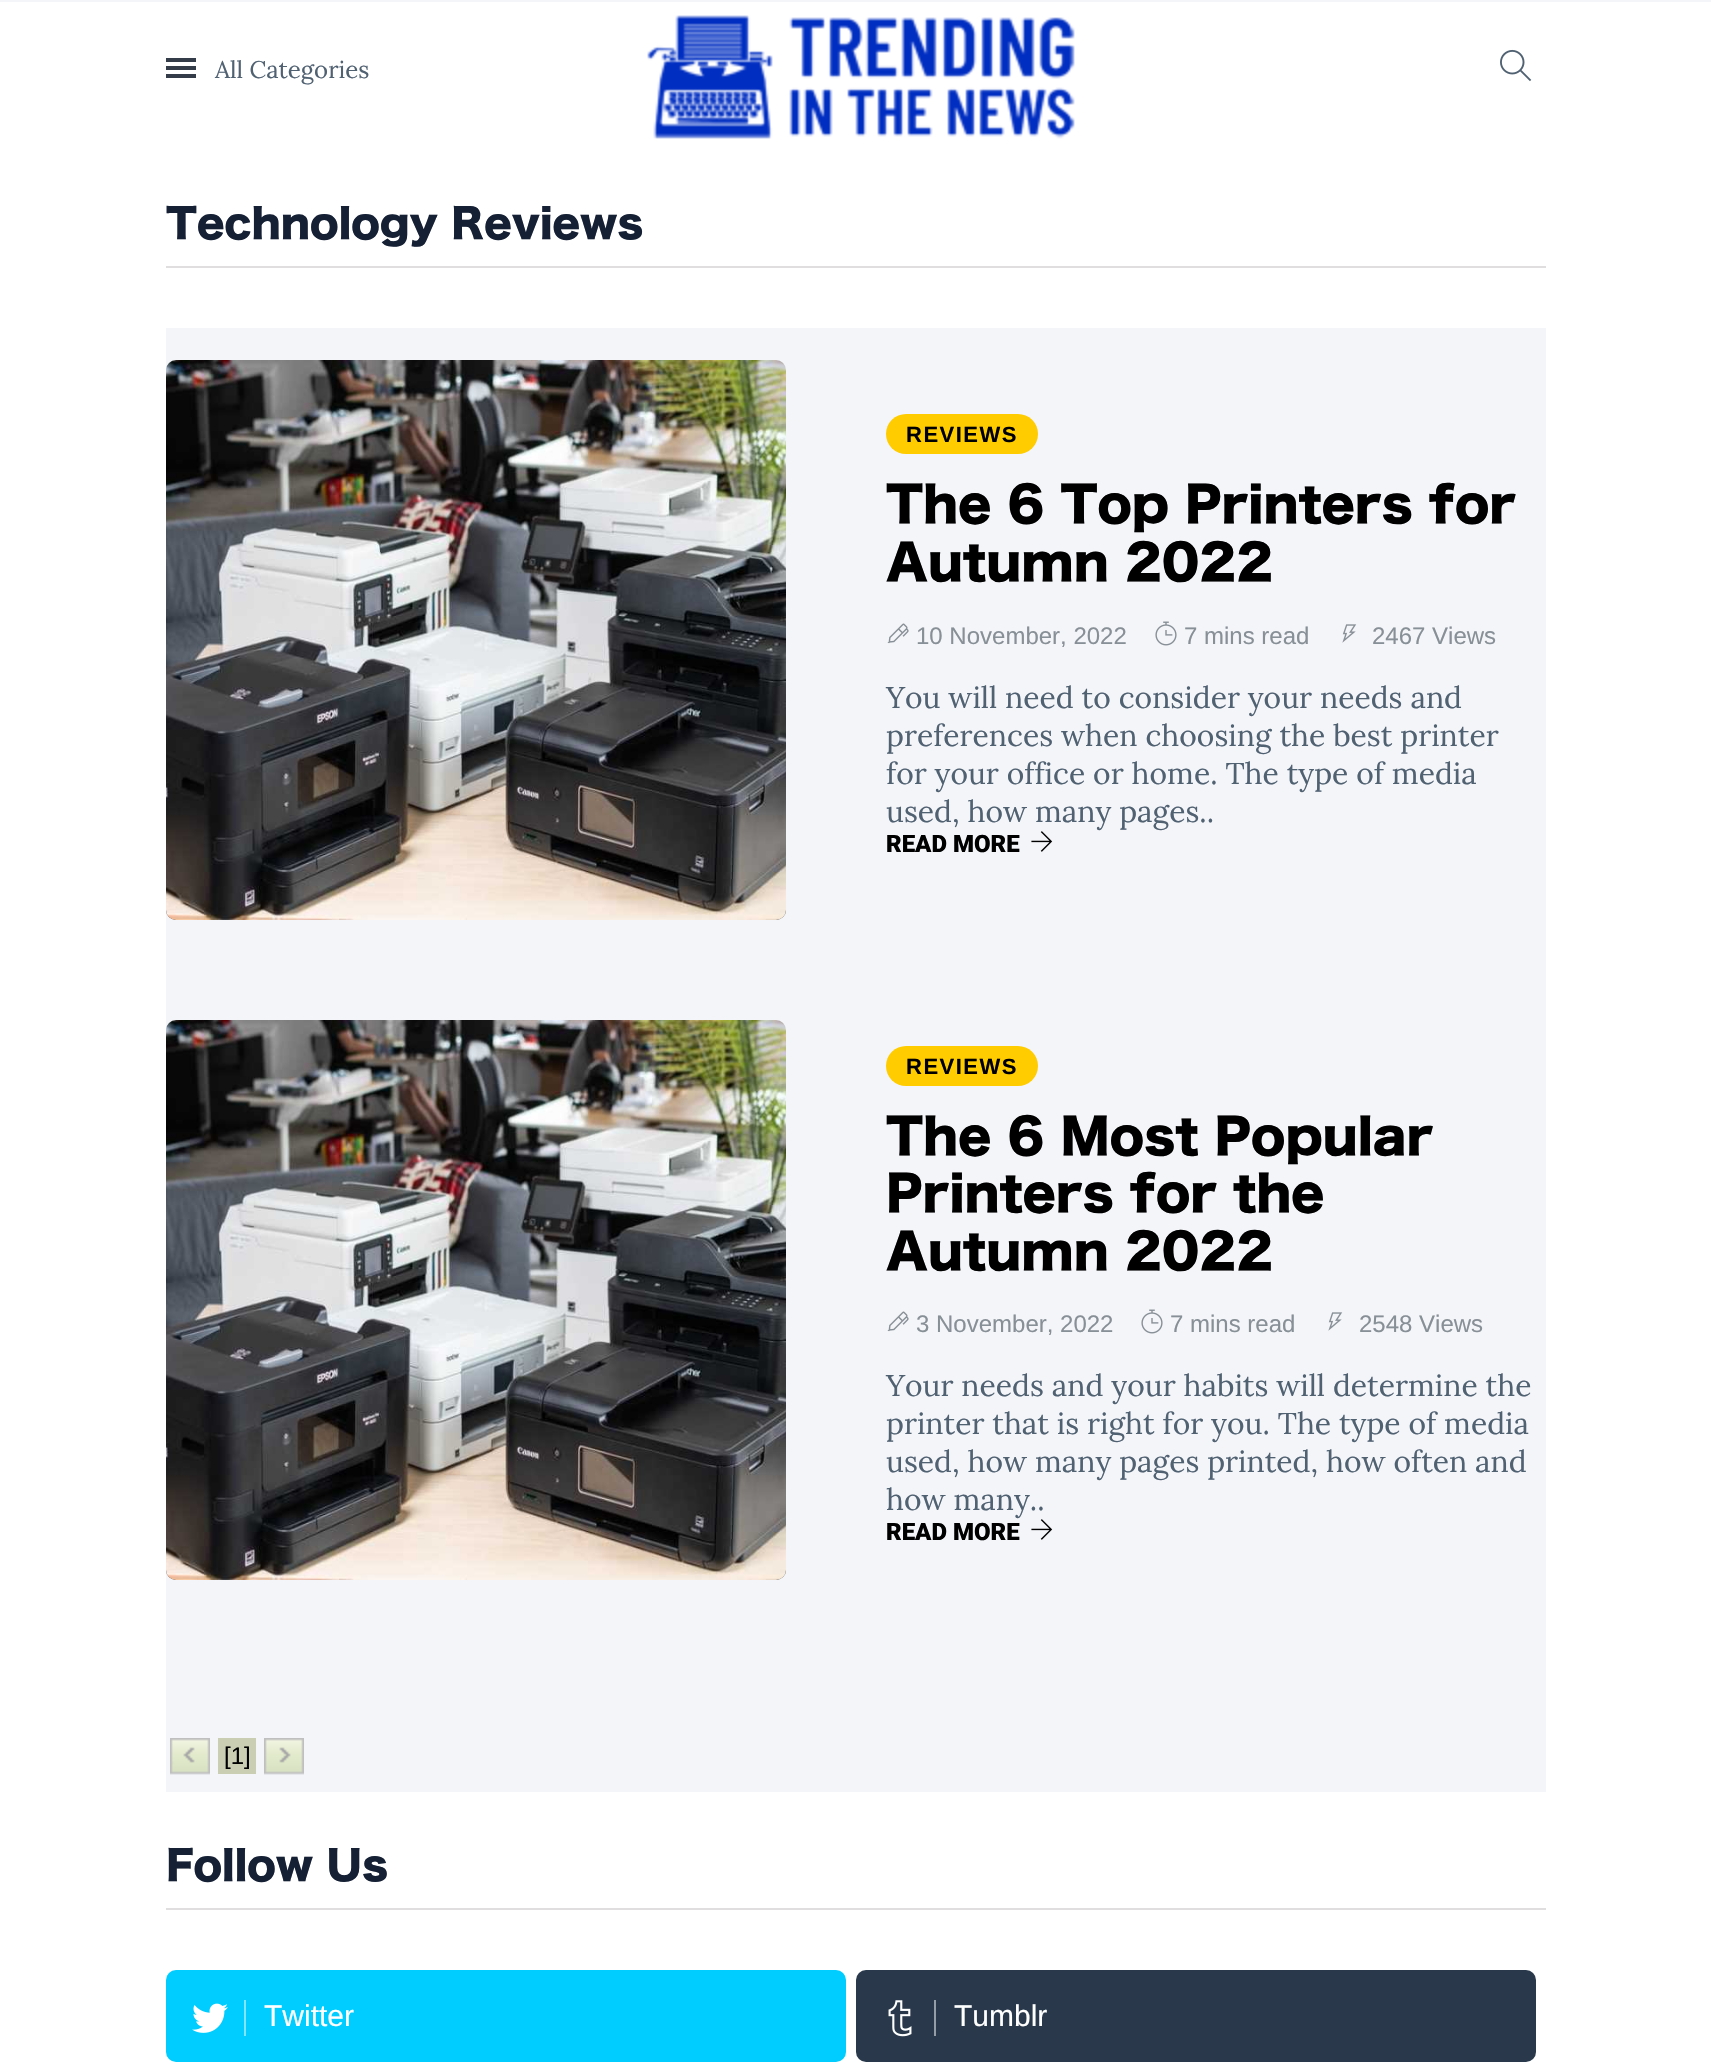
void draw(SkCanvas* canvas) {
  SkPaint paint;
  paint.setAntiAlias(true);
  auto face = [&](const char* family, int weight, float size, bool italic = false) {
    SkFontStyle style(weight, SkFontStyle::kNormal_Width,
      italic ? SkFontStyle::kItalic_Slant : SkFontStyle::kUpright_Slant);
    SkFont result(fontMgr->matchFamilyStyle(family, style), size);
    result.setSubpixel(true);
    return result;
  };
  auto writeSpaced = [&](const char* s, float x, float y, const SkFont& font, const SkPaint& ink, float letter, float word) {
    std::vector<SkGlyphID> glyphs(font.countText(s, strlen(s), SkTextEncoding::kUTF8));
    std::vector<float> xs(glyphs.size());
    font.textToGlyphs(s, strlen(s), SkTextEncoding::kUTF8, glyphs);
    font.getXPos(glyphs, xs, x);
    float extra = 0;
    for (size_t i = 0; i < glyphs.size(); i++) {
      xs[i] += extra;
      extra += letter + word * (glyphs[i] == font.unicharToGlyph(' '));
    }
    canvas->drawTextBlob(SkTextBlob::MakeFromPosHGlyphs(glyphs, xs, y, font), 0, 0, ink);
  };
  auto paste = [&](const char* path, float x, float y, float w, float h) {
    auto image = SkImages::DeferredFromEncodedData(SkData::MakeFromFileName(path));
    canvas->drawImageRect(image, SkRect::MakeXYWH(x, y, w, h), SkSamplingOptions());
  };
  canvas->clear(0xffffffff);
  {
    const struct { float x, y, w, h; SkColor color; } items[] = {
      {0, 0, 1711, 2, 0xfff4f5f9},
      {166, 74, 30, 4, 0xff353c49},
      {166, 58, 30, 4, 0xff353c49},
      {166, 66, 30, 4, 0xff353c49},
    };
    for (auto [x, y, w, h, color] : items) {
      paint.setColor(color);
      canvas->drawRect(SkRect::MakeXYWH(x, y, w, h), paint);
    }
  }
  paste("img/1.png", 647, 15, 428, 124);
  paste("img/2.png", 1500, 49, 32, 33);
  {
    const struct { float x, y, w, h; SkColor color; } items[] = {
      {166, 266, 1380, 2, 0xffe0dede},
      {166, 1680, 1380, 112, 0xfff4f5f9},
      {166, 328, 1380, 1352, 0xfff4f5f9},
    };
    for (auto [x, y, w, h, color] : items) {
      paint.setColor(color);
      canvas->drawRect(SkRect::MakeXYWH(x, y, w, h), paint);
    }
  }
  {
    const SkColor colors[] = {0xfff3f5f8, 0xff313132};
    const float stops[] = {0.5f, 1};
    const SkPoint ends[] = {{476, 360}, {476, 920}};
    paint.setShader(SkGradientShader::MakeLinear(ends, colors, stops, 2, SkTileMode::kClamp));
    paint.setAlpha(255);
  }
  canvas->drawRoundRect(SkRect::MakeXYWH(166, 360, 620, 560), 10, 10, paint);
  paste("img/3.png", 166, 360, 620, 560);
  paint.setShader(nullptr);
  paint.setColor(0xffffcc00);
  canvas->drawRoundRect(SkRect::MakeXYWH(886, 414, 152, 40), 20, 20, paint);
  paste("img/4.png", 887, 623, 22, 21);
  paste("img/5.png", 1155, 621, 22, 25);
  paste("img/6.png", 1342, 624, 15, 19);
  paste("img/7.png", 1031, 831, 22, 21);
  {
    const SkColor colors[] = {0xfff3f5f8, 0xff313132};
    const float stops[] = {0.5f, 1};
    const SkPoint ends[] = {{476, 1020}, {476, 1580}};
    paint.setShader(SkGradientShader::MakeLinear(ends, colors, stops, 2, SkTileMode::kClamp));
    paint.setAlpha(255);
  }
  canvas->drawRoundRect(SkRect::MakeXYWH(166, 1020, 620, 560), 10, 10, paint);
  paste("img/3.png", 166, 1020, 620, 560);
  paint.setShader(nullptr);
  paint.setColor(0xffffcc00);
  canvas->drawRoundRect(SkRect::MakeXYWH(886, 1046, 152, 40), 20, 20, paint);
  paste("img/4.png", 887, 1311, 22, 21);
  paste("img/5.png", 1141, 1309, 22, 25);
  paste("img/6.png", 1328, 1312, 15, 19);
  paste("img/7.png", 1031, 1519, 22, 21);
  paste("img/8.png", 170, 1738, 40, 37);
  paint.setColor(0xffcacfb4);
  canvas->drawRect(SkRect::MakeXYWH(218, 1738, 38, 36), paint);
  paste("img/9.png", 264, 1738, 40, 37);
  paint.setColor(0xffe0dede);
  canvas->drawRect(SkRect::MakeXYWH(166, 1908, 1380, 2), paint);
  paint.setColor(0xff00cdff);
  canvas->drawRoundRect(SkRect::MakeXYWH(166, 1970, 680, 92), 10, 10, paint);
  paint.setColor(0xff80e6ff);
  canvas->drawRect(SkRect::MakeXYWH(244, 2000, 2, 36), paint);
  paste("img/10.png", 192, 2003, 36, 30);
  paint.setColor(0xff29394b);
  canvas->drawRoundRect(SkRect::MakeXYWH(856, 1970, 680, 92), 10, 10, paint);
  paint.setColor(0xff949ca5);
  canvas->drawRect(SkRect::MakeXYWH(934, 2000, 2, 36), paint);
  paste("img/11.png", 888, 2000, 24, 37);
  auto f0 = face("Lora", 400, 24);
  paint.setColor(0xff506172);
  canvas->drawString("All Categories", 215, 78, f0, paint);
  auto f1 = face("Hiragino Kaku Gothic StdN", 800, 40);
  paint.setColor(0xff152035);
  canvas->drawString("Technology Reviews", 166, 238, f1, paint);
  auto f2 = face("Liberation Sans", 700, 22);
  paint.setColor(0xff000000);
  writeSpaced("REVIEWS", 906, 442, f2, paint, 1.5f, 0);
  auto f3 = face("Hiragino Kaku Gothic StdN", 800, 48);
  canvas->drawString("The 6 Top Printers for", 886, 522, f3, paint);
  canvas->drawString("Autumn 2022", 886, 580, f3, paint);
  auto f4 = face("Liberation Sans", 400, 24);
  paint.setColor(0xff889097);
  {
    const struct { const char* s; float x, y; } items[] = {
      {"10 November, 2022", 916, 644},
      {"7 mins read", 1184, 644},
      {"2467 Views", 1372, 644},
    };
    for (auto [s, x, y] : items) {
      canvas->drawString(s, x, y, f4, paint);
    }
  }
  auto f5 = face("Lora", 400, 30);
  paint.setColor(0xff506172);
  {
    const struct { const char* s; float x, y; } items[] = {
      {"You will need to consider your needs and", 886, 708},
      {"preferences when choosing the best printer", 886, 746},
      {"for your office or home. The type of media", 886, 784},
      {"used, how many pages..", 886, 822},
    };
    for (auto [s, x, y] : items) {
      canvas->drawString(s, x, y, f5, paint);
    }
  }
  auto f6 = face("Roboto", 900, 24);
  paint.setColor(0xff000000);
  canvas->drawString("READ MORE", 886, 852, f6, paint);
  writeSpaced("REVIEWS", 906, 1074, f2, paint, 1.5f, 0);
  {
    const struct { const char* s; float x, y; } items[] = {
      {"The 6 Most Popular", 886, 1154},
      {"Printers for the", 886, 1211},
      {"Autumn 2022", 886, 1269},
    };
    for (auto [s, x, y] : items) {
      canvas->drawString(s, x, y, f3, paint);
    }
  }
  paint.setColor(0xff889097);
  {
    const struct { const char* s; float x, y; } items[] = {
      {"3 November, 2022", 916, 1332},
      {"7 mins read", 1170, 1332},
      {"2548 Views", 1359, 1332},
    };
    for (auto [s, x, y] : items) {
      canvas->drawString(s, x, y, f4, paint);
    }
  }
  paint.setColor(0xff506172);
  {
    const struct { const char* s; float x, y; } items[] = {
      {"Your needs and your habits will determine the", 886, 1396},
      {"printer that is right for you. The type of media", 886, 1434},
      {"used, how many pages printed, how often and", 886, 1472},
      {"how many..", 886, 1510},
    };
    for (auto [s, x, y] : items) {
      canvas->drawString(s, x, y, f5, paint);
    }
  }
  paint.setColor(0xff000000);
  canvas->drawString("READ MORE", 886, 1540, f6, paint);
  canvas->drawString("[1]", 224, 1764, f4, paint);
  paint.setColor(0xff152035);
  canvas->drawString("Follow Us", 166, 1880, f1, paint);
  auto f7 = face("Arimo", 400, 30);
  paint.setColor(0xffffffff);
  canvas->drawString("Twitter", 264, 2026, f7, paint);
  canvas->drawString("Tumblr", 954, 2026, f7, paint);
}
